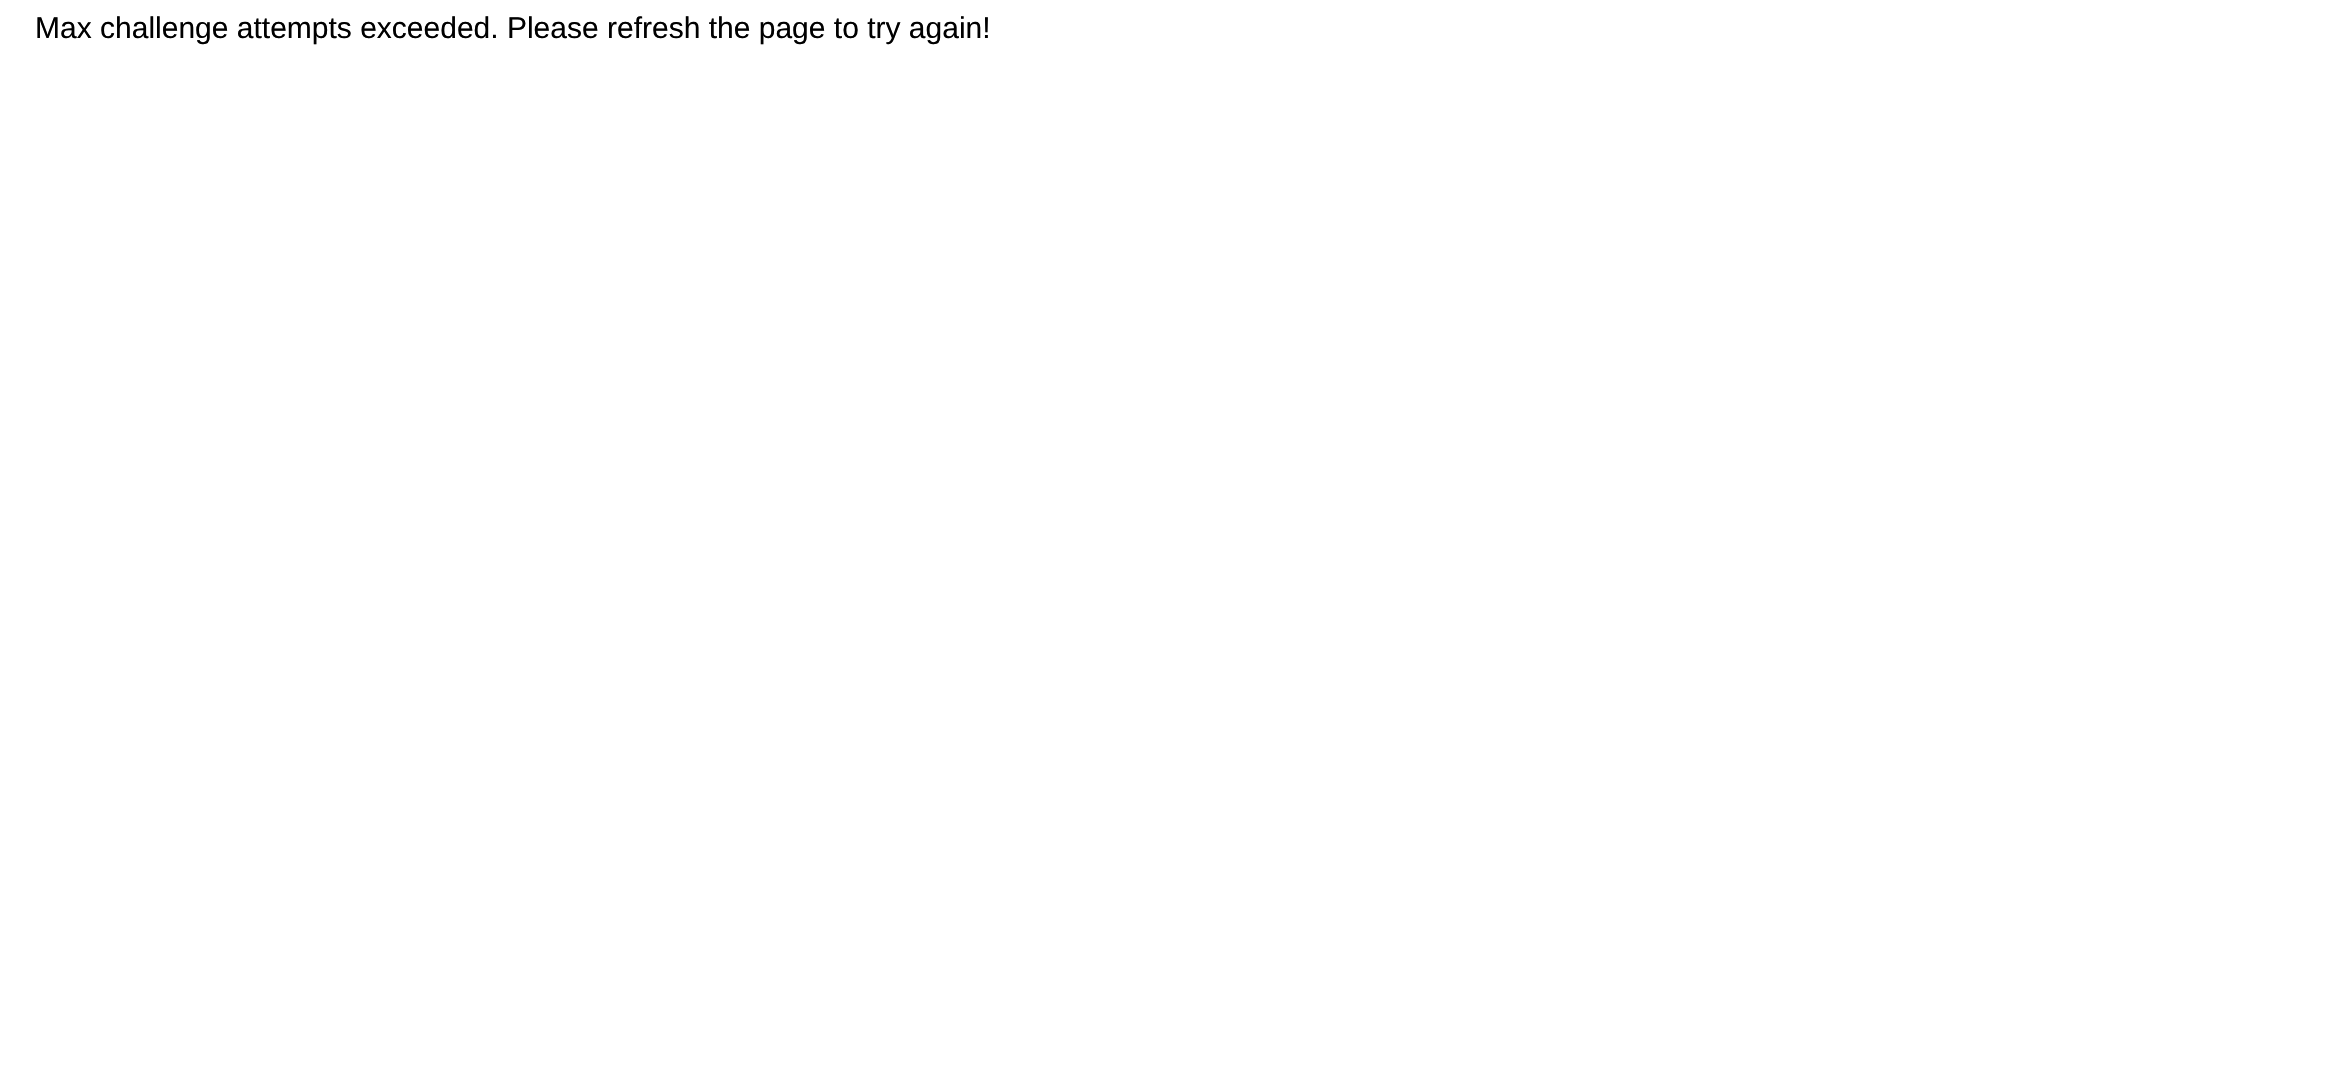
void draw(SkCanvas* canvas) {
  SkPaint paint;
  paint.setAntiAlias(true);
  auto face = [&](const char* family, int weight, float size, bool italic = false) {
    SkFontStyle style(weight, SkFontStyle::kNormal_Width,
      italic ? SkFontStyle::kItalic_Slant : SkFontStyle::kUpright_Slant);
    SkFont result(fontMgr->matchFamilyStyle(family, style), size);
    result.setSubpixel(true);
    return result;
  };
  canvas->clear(0xffffffff);
  auto f0 = face("Liberation Sans", 400, 30);
  paint.setColor(0xff000000);
  canvas->drawString("Max challenge attempts exceeded. Please refresh the page to try again!", 35, 38, f0, paint);
}
